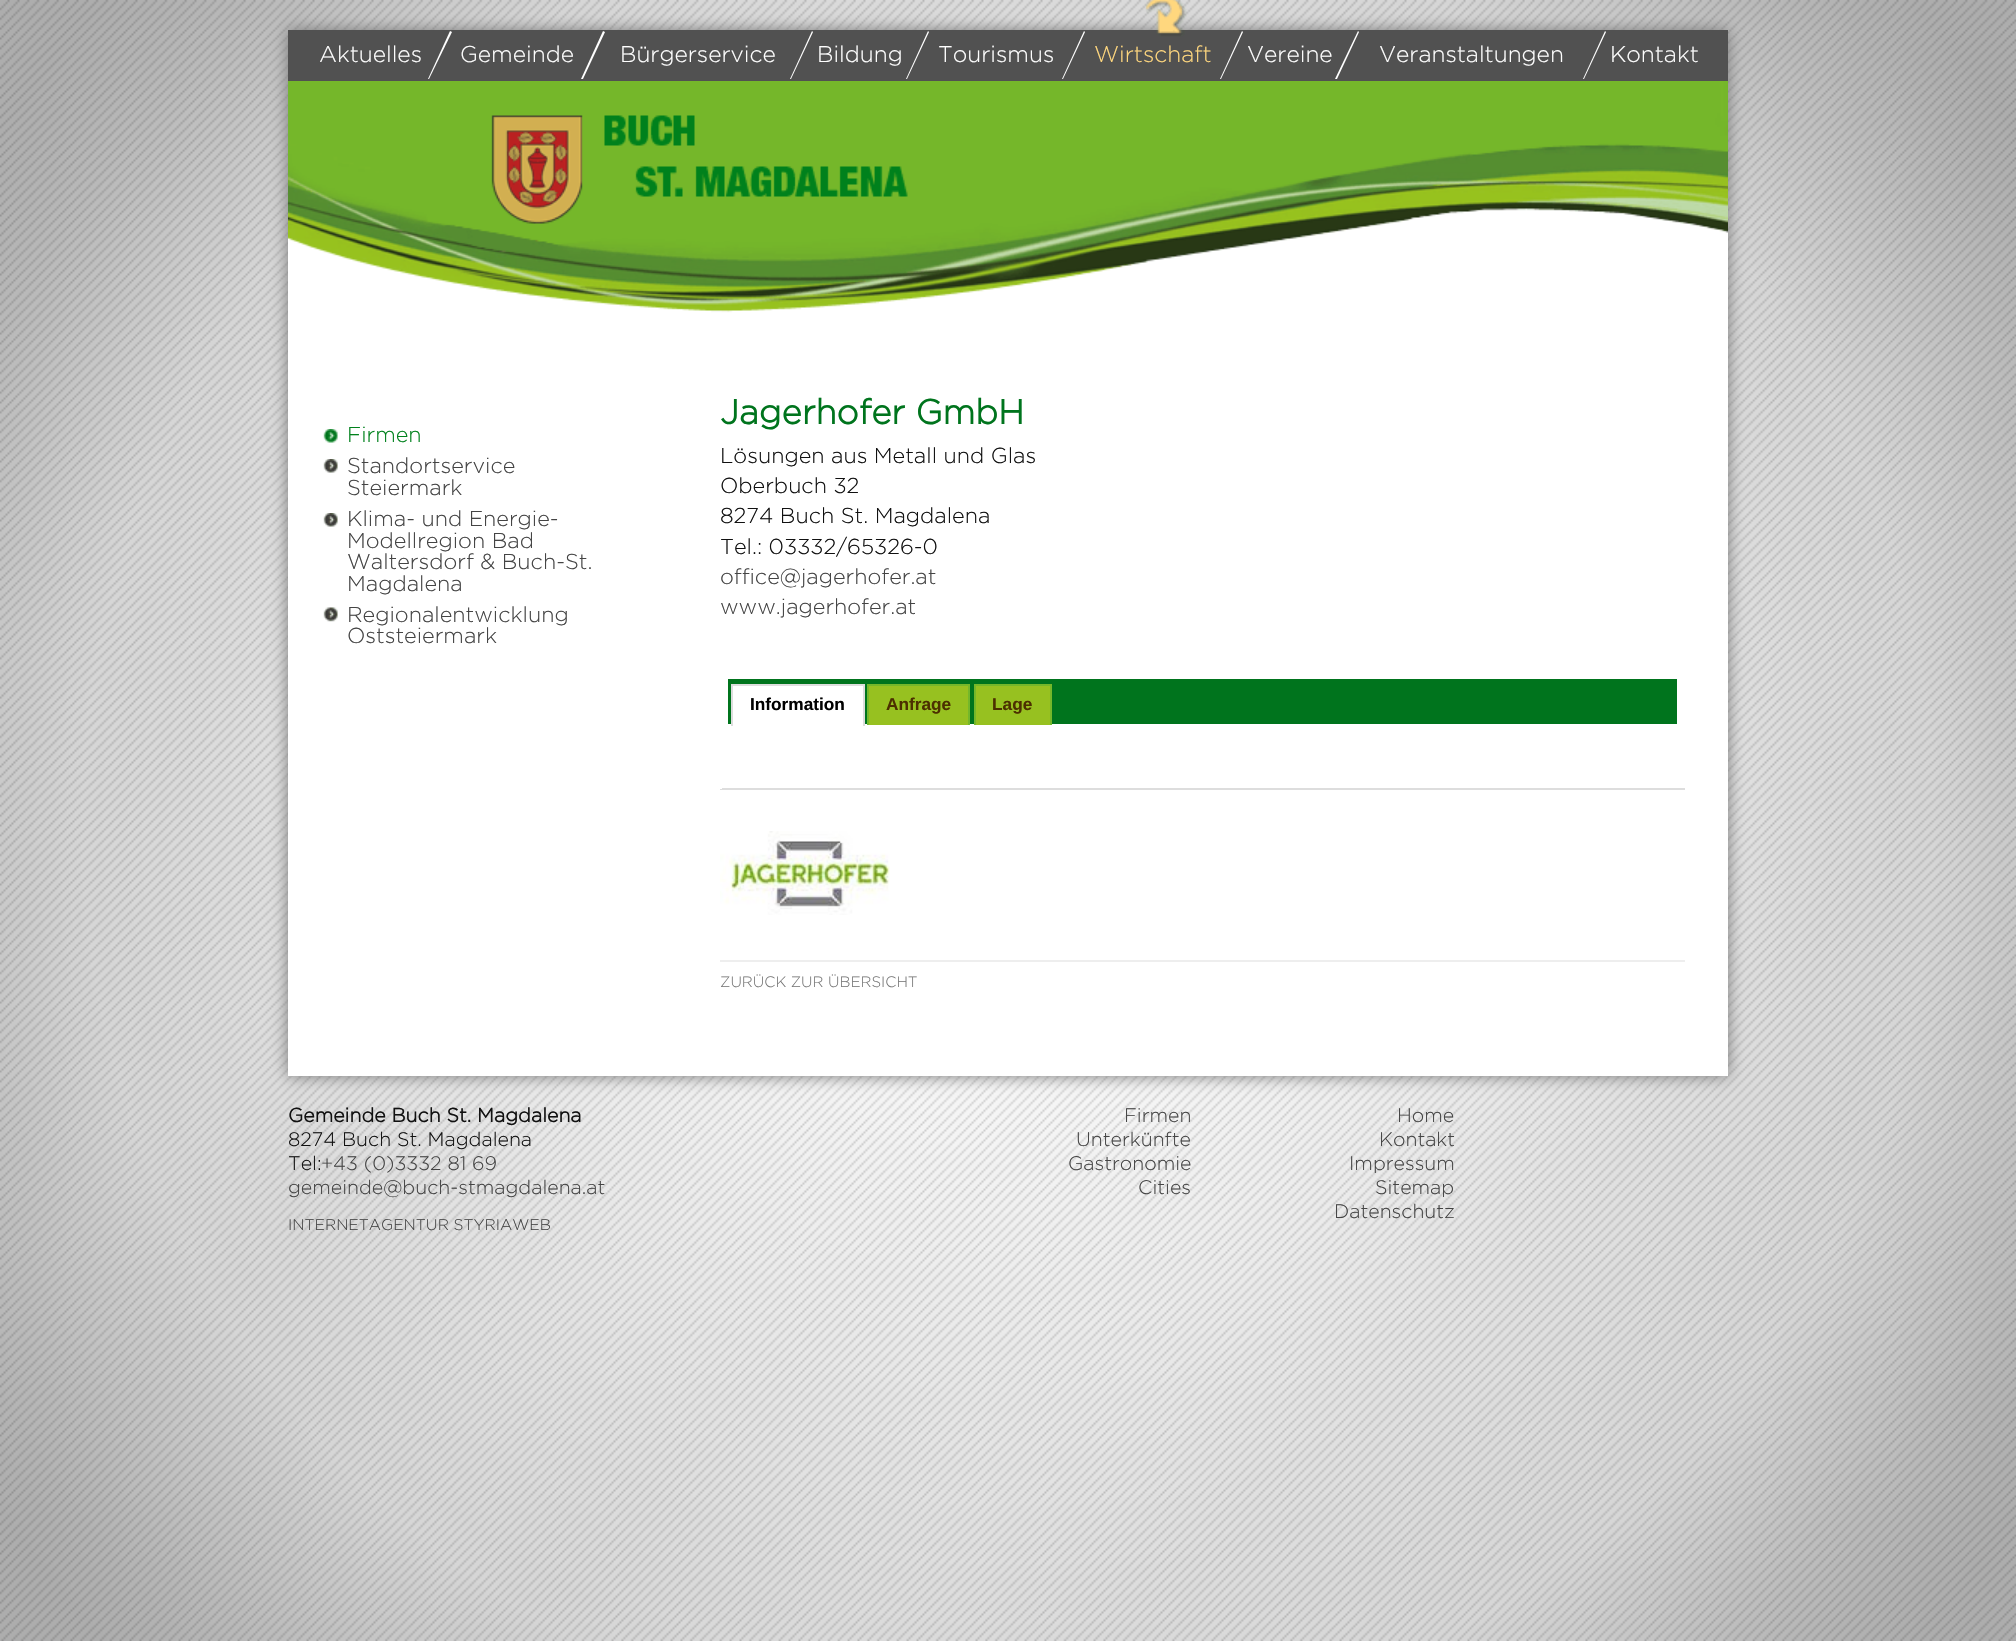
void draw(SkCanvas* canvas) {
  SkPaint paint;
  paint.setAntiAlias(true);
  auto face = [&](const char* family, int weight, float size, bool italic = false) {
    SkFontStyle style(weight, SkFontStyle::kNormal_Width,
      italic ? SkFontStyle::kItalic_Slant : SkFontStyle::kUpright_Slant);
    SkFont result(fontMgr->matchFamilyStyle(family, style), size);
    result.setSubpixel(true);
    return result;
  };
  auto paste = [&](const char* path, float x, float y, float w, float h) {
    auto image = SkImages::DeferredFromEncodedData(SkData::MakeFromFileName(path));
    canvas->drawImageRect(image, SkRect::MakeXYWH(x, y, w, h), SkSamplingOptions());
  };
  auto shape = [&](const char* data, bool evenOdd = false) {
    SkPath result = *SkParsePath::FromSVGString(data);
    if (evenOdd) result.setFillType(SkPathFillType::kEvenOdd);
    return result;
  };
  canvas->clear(0xffffffff);
  paste("img/1.png", 0, 0, 2016, 1641);
  paint.setColor(0xff777777);
  paint.setMaskFilter(SkMaskFilter::MakeBlur(kNormal_SkBlurStyle, 7.5f));
  canvas->drawRect(SkRect::MakeXYWH(288, 30, 1440, 1046), paint);
  paint.setMaskFilter(nullptr);
  paint.setColor(0xffffffff);
  canvas->drawRect(SkRect::MakeXYWH(288, 208, 1440, 868), paint);
  paint.setColor(0xff515151);
  canvas->drawRect(SkRect::MakeXYWH(288, 30, 1440, 51), paint);
  paint.setColor(0xffffffff);
  canvas->drawPath(shape("M450 31L452 32L429 79H428Z"), paint);
  canvas->drawPath(shape("M603 31L605 32L583 79H581Z"), paint);
  canvas->drawPath(shape("M812 31L813 32L791 79H790Z"), paint);
  canvas->drawPath(shape("M928 31L929 32L907 79H906Z"), paint);
  paste("img/2.png", 1145, 0, 42, 37);
  canvas->drawPath(shape("M1084 31L1085 32L1063 79H1062Z"), paint);
  canvas->drawPath(shape("M1242 31L1243 32L1221 79H1220Z"), paint);
  canvas->drawPath(shape("M1358 31L1359 32L1337 79H1335Z"), paint);
  canvas->drawPath(shape("M1605 31L1606 32L1584 79H1583Z"), paint);
  paste("img/3.png", 288, 81, 1440, 232);
  paste("img/4.png", 491, 115, 417, 109);
  paste("img/5.png", 323, 429, 15, 14);
  paste("img/6.png", 323, 459, 15, 14);
  paste("img/6.png", 323, 513, 15, 14);
  paste("img/7.png", 323, 607, 15, 15);
  {
    const struct { float x, y, w, h; SkColor color; } items[] = {
      {720, 788, 965, 2, 0xffdddddd},
      {720, 788, 2, 1, 0xffffffff},
      {728, 679, 949, 45, 0xff00741d},
      {733, 686, 130, 38, 0xffffffff},
      {731, 684, 133, 2, 0xffdddddd},
      {863, 684, 2, 42, 0xffdddddd},
      {731, 684, 2, 42, 0xffdddddd},
      {869, 686, 99, 39, 0xff97c120},
      {867, 684, 102, 2, 0xff75b72a},
      {968, 684, 2, 41, 0xff75b72a},
      {867, 684, 2, 41, 0xff75b72a},
      {976, 686, 74, 39, 0xff97c120},
      {974, 684, 78, 2, 0xff75b72a},
      {1050, 684, 2, 41, 0xff75b72a},
      {974, 684, 2, 41, 0xff75b72a},
    };
    for (auto [x, y, w, h, color] : items) {
      paint.setColor(color);
      canvas->drawRect(SkRect::MakeXYWH(x, y, w, h), paint);
    }
  }
  paste("img/8.png", 720, 831, 170, 84);
  paint.setColor(0xffeeeeee);
  canvas->drawRect(SkRect::MakeXYWH(720, 960, 965, 2), paint);
  auto f0 = face("Gotham", 300, 22.75f);
  paint.setColor(0xffffffff);
  {
    const struct { const char* s; float x, y; } items[] = {
      {"Aktuelles", 319, 62},
      {"Gemeinde", 460, 62},
      {"Bürgerservice", 620, 62},
      {"Bildung", 817, 62},
      {"Tourismus", 938, 62},
    };
    for (auto [s, x, y] : items) {
      canvas->drawString(s, x, y, f0, paint);
    }
  }
  paint.setColor(0xffffd77e);
  canvas->drawString("Wirtschaft", 1094, 62, f0, paint);
  paint.setColor(0xffffffff);
  {
    const struct { const char* s; float x, y; } items[] = {
      {"Vereine", 1247, 62},
      {"Veranstaltungen", 1379, 62},
      {"Kontakt", 1610, 62},
    };
    for (auto [s, x, y] : items) {
      canvas->drawString(s, x, y, f0, paint);
    }
  }
  auto f1 = face("Gotham", 300, 21.6f);
  paint.setColor(0xff00811c);
  canvas->drawString("Firmen", 347, 442, f1, paint);
  paint.setColor(0xff444444);
  {
    const struct { const char* s; float x, y; } items[] = {
      {"Standortservice", 347, 473},
      {"Steiermark", 347, 495},
      {"Klima- und Energie-", 347, 526},
      {"Modellregion Bad", 347, 548},
      {"Waltersdorf & Buch-St.", 347, 569},
      {"Magdalena", 347, 591},
      {"Regionalentwicklung", 347, 622},
      {"Oststeiermark", 347, 643},
    };
    for (auto [s, x, y] : items) {
      canvas->drawString(s, x, y, f1, paint);
    }
  }
  auto f2 = face("Gotham", 700, 34.5f);
  paint.setColor(0xff00741d);
  canvas->drawString("Jagerhofer GmbH", 720, 424, f2, paint);
  paint.setColor(0xff111111);
  {
    const struct { const char* s; float x, y; } items[] = {
      {"Lösungen aus Metall und Glas", 720, 463},
      {"Oberbuch 32", 720, 493},
      {"8274 Buch St. Magdalena", 720, 523},
      {"Tel.: 03332/65326-0", 720, 554},
    };
    for (auto [s, x, y] : items) {
      canvas->drawString(s, x, y, f1, paint);
    }
  }
  paint.setColor(0xff444444);
  canvas->drawString("office@jagerhofer.at", 720, 584, f1, paint);
  canvas->drawString("www.jagerhofer.at", 720, 614, f1, paint);
  auto f3 = face("Liberation Sans", 700, 17.25f);
  paint.setColor(0xff000000);
  canvas->drawString("Information", 750, 710, f3, paint);
  paint.setColor(0xff4c3000);
  canvas->drawString("Anfrage", 886, 710, f3, paint);
  canvas->drawString("Lage", 992, 710, f3, paint);
  auto f4 = face("Gotham", 300, 15.1f);
  paint.setColor(0xff777777);
  canvas->drawString("ZURÜCK ZUR ÜBERSICHT", 720, 987, f4, paint);
  auto f5 = face("Gotham", 700, 19.5f);
  paint.setColor(0xff111111);
  canvas->drawString("Gemeinde Buch St. Magdalena", 288, 1122, f5, paint);
  auto f6 = face("Gotham", 300, 19.5f);
  canvas->drawString("8274 Buch St. Magdalena", 288, 1146, f6, paint);
  canvas->drawString("Tel:", 288, 1170, f6, paint);
  paint.setColor(0xff444444);
  canvas->drawString("+43 (0)3332 81 69", 321, 1170, f6, paint);
  canvas->drawString("gemeinde@buch-stmagdalena.at", 288, 1194, f6, paint);
  auto f7 = face("Gotham", 300, 15.5f);
  canvas->drawString("INTERNETAGENTUR STYRIAWEB", 288, 1230, f7, paint);
  {
    const struct { const char* s; float x, y; } items[] = {
      {"Firmen", 1124, 1122},
      {"Unterkünfte", 1076, 1146},
      {"Gastronomie", 1068, 1170},
      {"Cities", 1138, 1194},
      {"Home", 1397, 1122},
      {"Kontakt", 1379, 1146},
      {"Impressum", 1349, 1170},
      {"Sitemap", 1375, 1194},
      {"Datenschutz", 1334, 1218},
    };
    for (auto [s, x, y] : items) {
      canvas->drawString(s, x, y, f6, paint);
    }
  }
}
